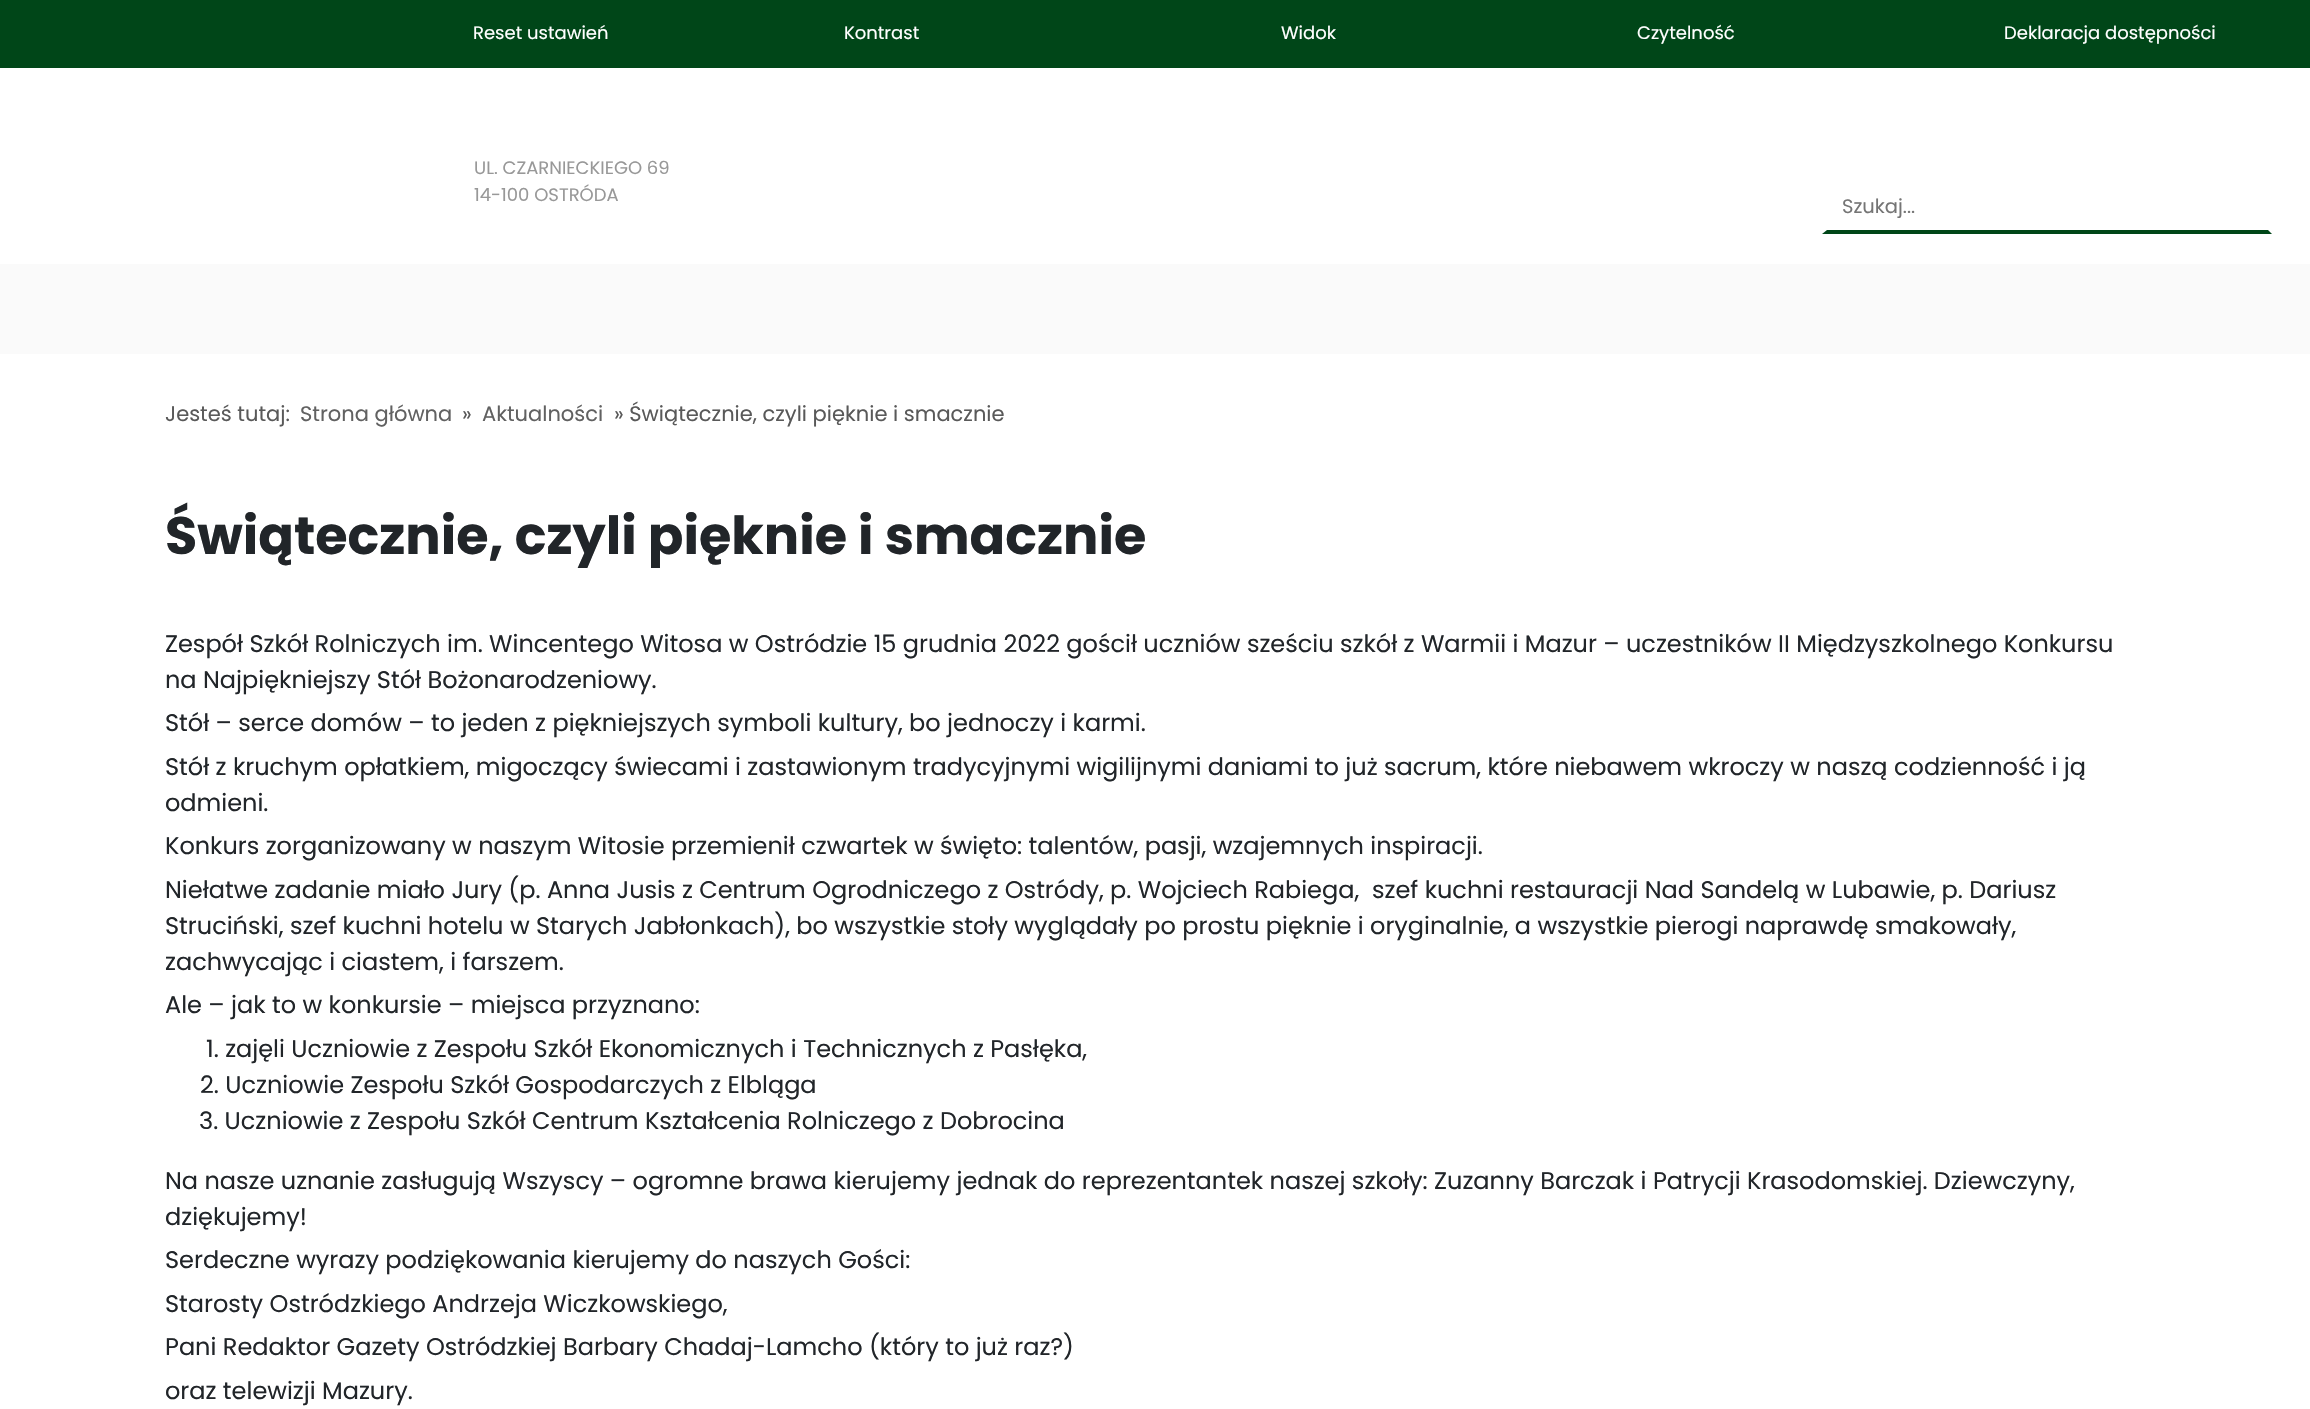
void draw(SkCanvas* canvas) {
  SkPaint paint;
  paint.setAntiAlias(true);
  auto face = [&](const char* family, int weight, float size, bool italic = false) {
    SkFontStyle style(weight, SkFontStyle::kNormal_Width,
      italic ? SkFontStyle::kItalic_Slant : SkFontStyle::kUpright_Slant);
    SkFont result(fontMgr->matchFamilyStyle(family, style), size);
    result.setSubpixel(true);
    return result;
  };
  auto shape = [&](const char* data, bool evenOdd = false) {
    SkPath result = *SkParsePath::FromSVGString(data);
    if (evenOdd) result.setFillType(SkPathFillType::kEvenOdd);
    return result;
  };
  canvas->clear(0xffffffff);
  paint.setColor(0xff004618);
  canvas->drawRect(SkRect::MakeXYWH(0, 0, 2310, 68), paint);
  canvas->drawPath(shape("M2272 234H1822L1827 230H2268Z"), paint);
  paint.setColor(0xfffafafa);
  canvas->drawRect(SkRect::MakeXYWH(0, 264, 2310, 90), paint);
  auto f0 = face("Poppins", 400, 18);
  paint.setColor(0xffffffff);
  {
    const struct { const char* s; float x, y; } items[] = {
      {"Reset ustawień", 473, 39},
      {"Kontrast", 844, 39},
      {"Widok", 1281, 39},
      {"Czytelność", 1637, 39},
      {"Deklaracja dostępności", 2004, 39},
    };
    for (auto [s, x, y] : items) {
      canvas->drawString(s, x, y, f0, paint);
    }
  }
  paint.setColor(0xff989898);
  canvas->drawString("UL. CZARNIECKIEGO 69", 474, 174, f0, paint);
  canvas->drawString("14-100 OSTRÓDA", 474, 201, f0, paint);
  auto f1 = face("Poppins", 400, 19.5f);
  paint.setColor(0xff757575);
  canvas->drawString("Szukaj...", 1842, 213, f1, paint);
  auto f2 = face("Poppins", 400, 21);
  paint.setColor(0xff595959);
  canvas->drawString("Jesteś tutaj:", 165, 421, f2, paint);
  paint.setColor(0xff616161);
  canvas->drawString("Strona główna", 300, 421, f2, paint);
  paint.setColor(0xff595959);
  canvas->drawString("»", 462, 421, f2, paint);
  paint.setColor(0xff616161);
  canvas->drawString("Aktualności", 482, 421, f2, paint);
  paint.setColor(0xff595959);
  canvas->drawString("» Świątecznie, czyli pięknie i smacznie", 614, 421, f2, paint);
  auto f3 = face("Poppins", 700, 52.5f);
  paint.setColor(0xff212529);
  canvas->drawString("Świątecznie, czyli pięknie i smacznie", 165, 554, f3, paint);
  auto f4 = face("Poppins", 400, 24);
  {
    const struct { const char* s; float x, y; } items[] = {
      {"Zespół Szkół Rolniczych im. Wincentego Witosa w Ostródzie 15 grudnia 2022 gościł uczniów sześciu szkół z Warmii i Mazur – uczestników II Międzyszkolnego Konkursu", 165, 652},
      {"na Najpiękniejszy Stół Bożonarodzeniowy.", 165, 688},
      {"Stół – serce domów – to jeden z piękniejszych symboli kultury, bo jednoczy i karmi.", 165, 731},
      {"Stół z kruchym opłatkiem, migoczący świecami i zastawionym tradycyjnymi wigilijnymi daniami to już sacrum, które niebawem wkroczy w naszą codzienność i ją", 165, 775},
      {"odmieni.", 165, 811},
      {"Konkurs zorganizowany w naszym Witosie przemienił czwartek w święto: talentów, pasji, wzajemnych inspiracji.", 165, 854},
      {"Niełatwe zadanie miało Jury (p. Anna Jusis z Centrum Ogrodniczego z Ostródy, p. Wojciech Rabiega,  szef kuchni restauracji Nad Sandelą w Lubawie, p. Dariusz", 165, 898},
      {"Struciński, szef kuchni hotelu w Starych Jabłonkach), bo wszystkie stoły wyglądały po prostu pięknie i oryginalnie, a wszystkie pierogi naprawdę smakowały,", 165, 934},
      {"zachwycając i ciastem, i farszem.", 165, 970},
      {"Ale – jak to w konkursie – miejsca przyznano:", 165, 1013},
      {"1. zajęli Uczniowie z Zespołu Szkół Ekonomicznych i Technicznych z Pasłęka,", 206, 1057},
      {"2. Uczniowie Zespołu Szkół Gospodarczych z Elbląga", 200, 1093},
      {"3. Uczniowie z Zespołu Szkół Centrum Kształcenia Rolniczego z Dobrocina", 199, 1129},
      {"Na nasze uznanie zasługują Wszyscy – ogromne brawa kierujemy jednak do reprezentantek naszej szkoły: Zuzanny Barczak i Patrycji Krasodomskiej. Dziewczyny,", 165, 1189},
      {"dziękujemy!", 165, 1225},
      {"Serdeczne wyrazy podziękowania kierujemy do naszych Gości:", 165, 1268},
      {"Starosty Ostródzkiego Andrzeja Wiczkowskiego,", 165, 1312},
      {"Pani Redaktor Gazety Ostródzkiej Barbary Chadaj-Lamcho (który to już raz?)", 165, 1355},
      {"oraz telewizji Mazury.", 165, 1399},
    };
    for (auto [s, x, y] : items) {
      canvas->drawString(s, x, y, f4, paint);
    }
  }
}
